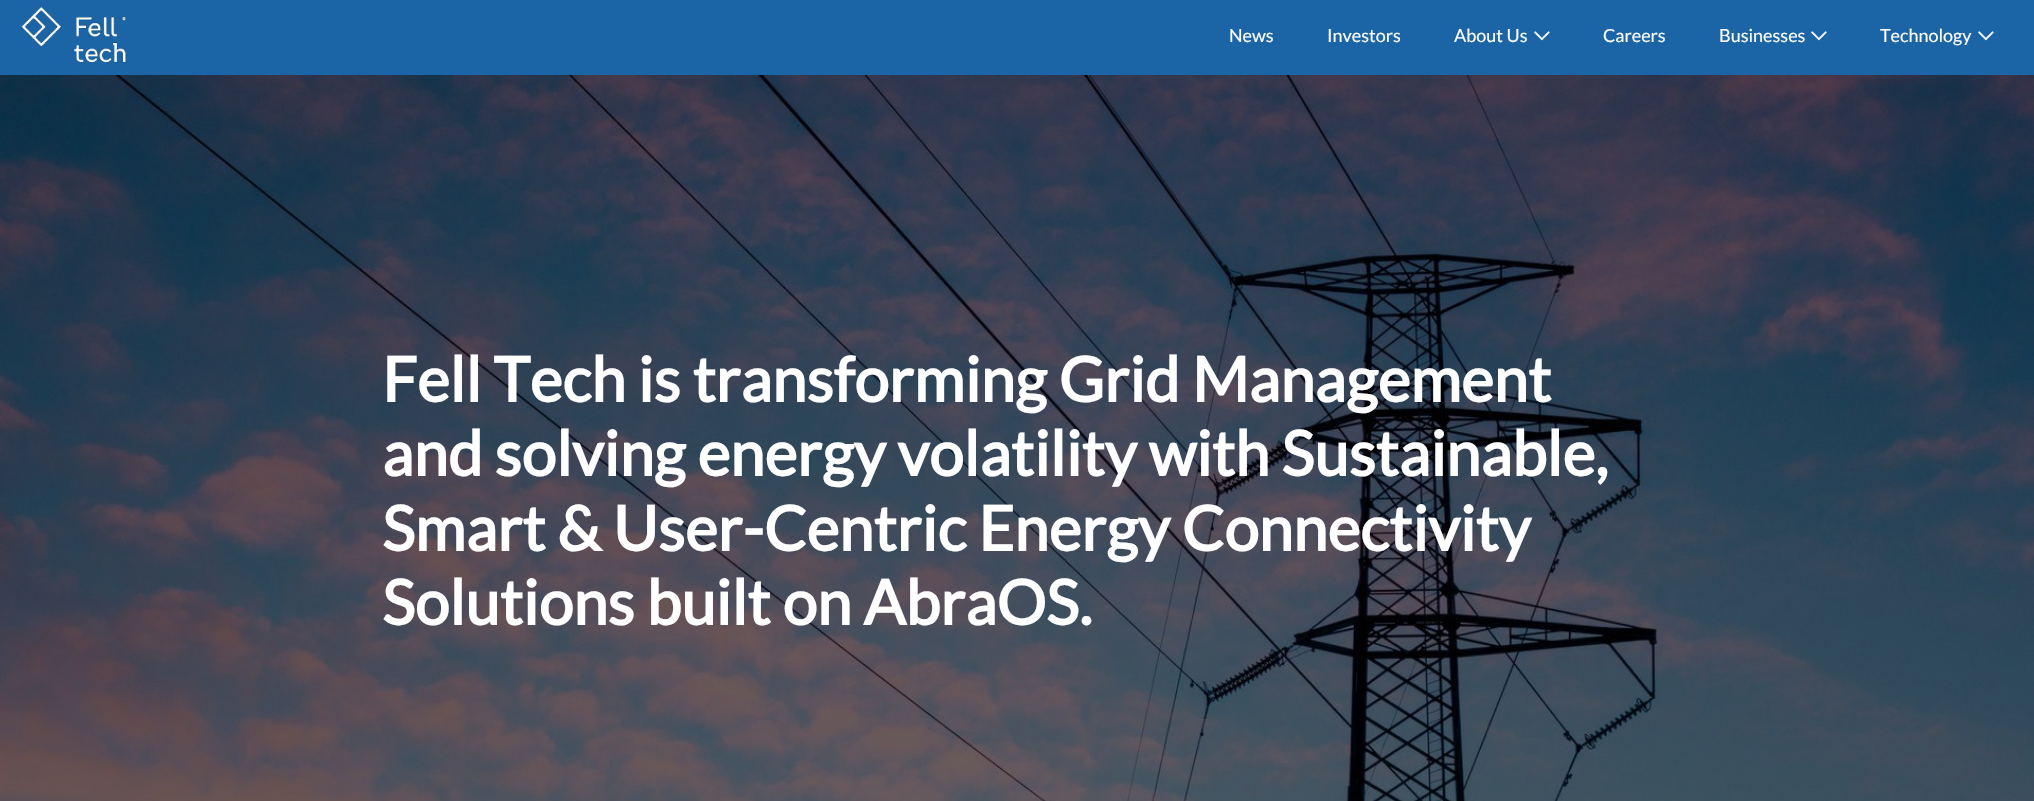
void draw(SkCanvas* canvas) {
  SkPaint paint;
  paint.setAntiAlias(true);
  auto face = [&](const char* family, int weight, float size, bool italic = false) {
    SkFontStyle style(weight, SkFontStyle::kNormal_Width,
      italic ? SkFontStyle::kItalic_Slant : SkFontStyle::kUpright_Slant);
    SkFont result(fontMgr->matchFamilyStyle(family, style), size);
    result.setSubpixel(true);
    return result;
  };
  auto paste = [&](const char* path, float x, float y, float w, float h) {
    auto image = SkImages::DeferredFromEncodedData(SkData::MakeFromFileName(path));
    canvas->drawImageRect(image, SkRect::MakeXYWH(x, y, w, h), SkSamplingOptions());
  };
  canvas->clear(0xffffffff);
  paint.setColor(0xff1b65a6);
  canvas->drawRect(SkRect::MakeXYWH(0, 0, 2034, 75), paint);
  paste("img/1.png", 21, 6, 106, 58);
  paste("img/2.png", 1534, 31, 16, 10);
  paste("img/2.png", 1811, 31, 16, 10);
  paste("img/2.png", 1978, 31, 16, 10);
  paste("img/3.png", 0, 75, 2034, 726);
  auto f0 = face("Lato", 400, 18);
  paint.setColor(0xffffffff);
  {
    const struct { const char* s; float x, y; } items[] = {
      {"News", 1229, 42},
      {"Investors", 1327, 42},
      {"About Us", 1454, 42},
      {"Careers", 1603, 42},
      {"Businesses", 1719, 42},
      {"Technology", 1880, 42},
    };
    for (auto [s, x, y] : items) {
      canvas->drawString(s, x, y, f0, paint);
    }
  }
  auto f1 = face("Lato", 700, 62);
  {
    const struct { const char* s; float x, y; } items[] = {
      {"Fell Tech is transforming Grid Management", 382, 402},
      {"and solving energy volatility with Sustainable,", 382, 476},
      {"Smart & User-Centric Energy Connectivity", 382, 551},
      {"Solutions built on AbraOS.", 382, 625},
    };
    for (auto [s, x, y] : items) {
      canvas->drawString(s, x, y, f1, paint);
    }
  }
}
